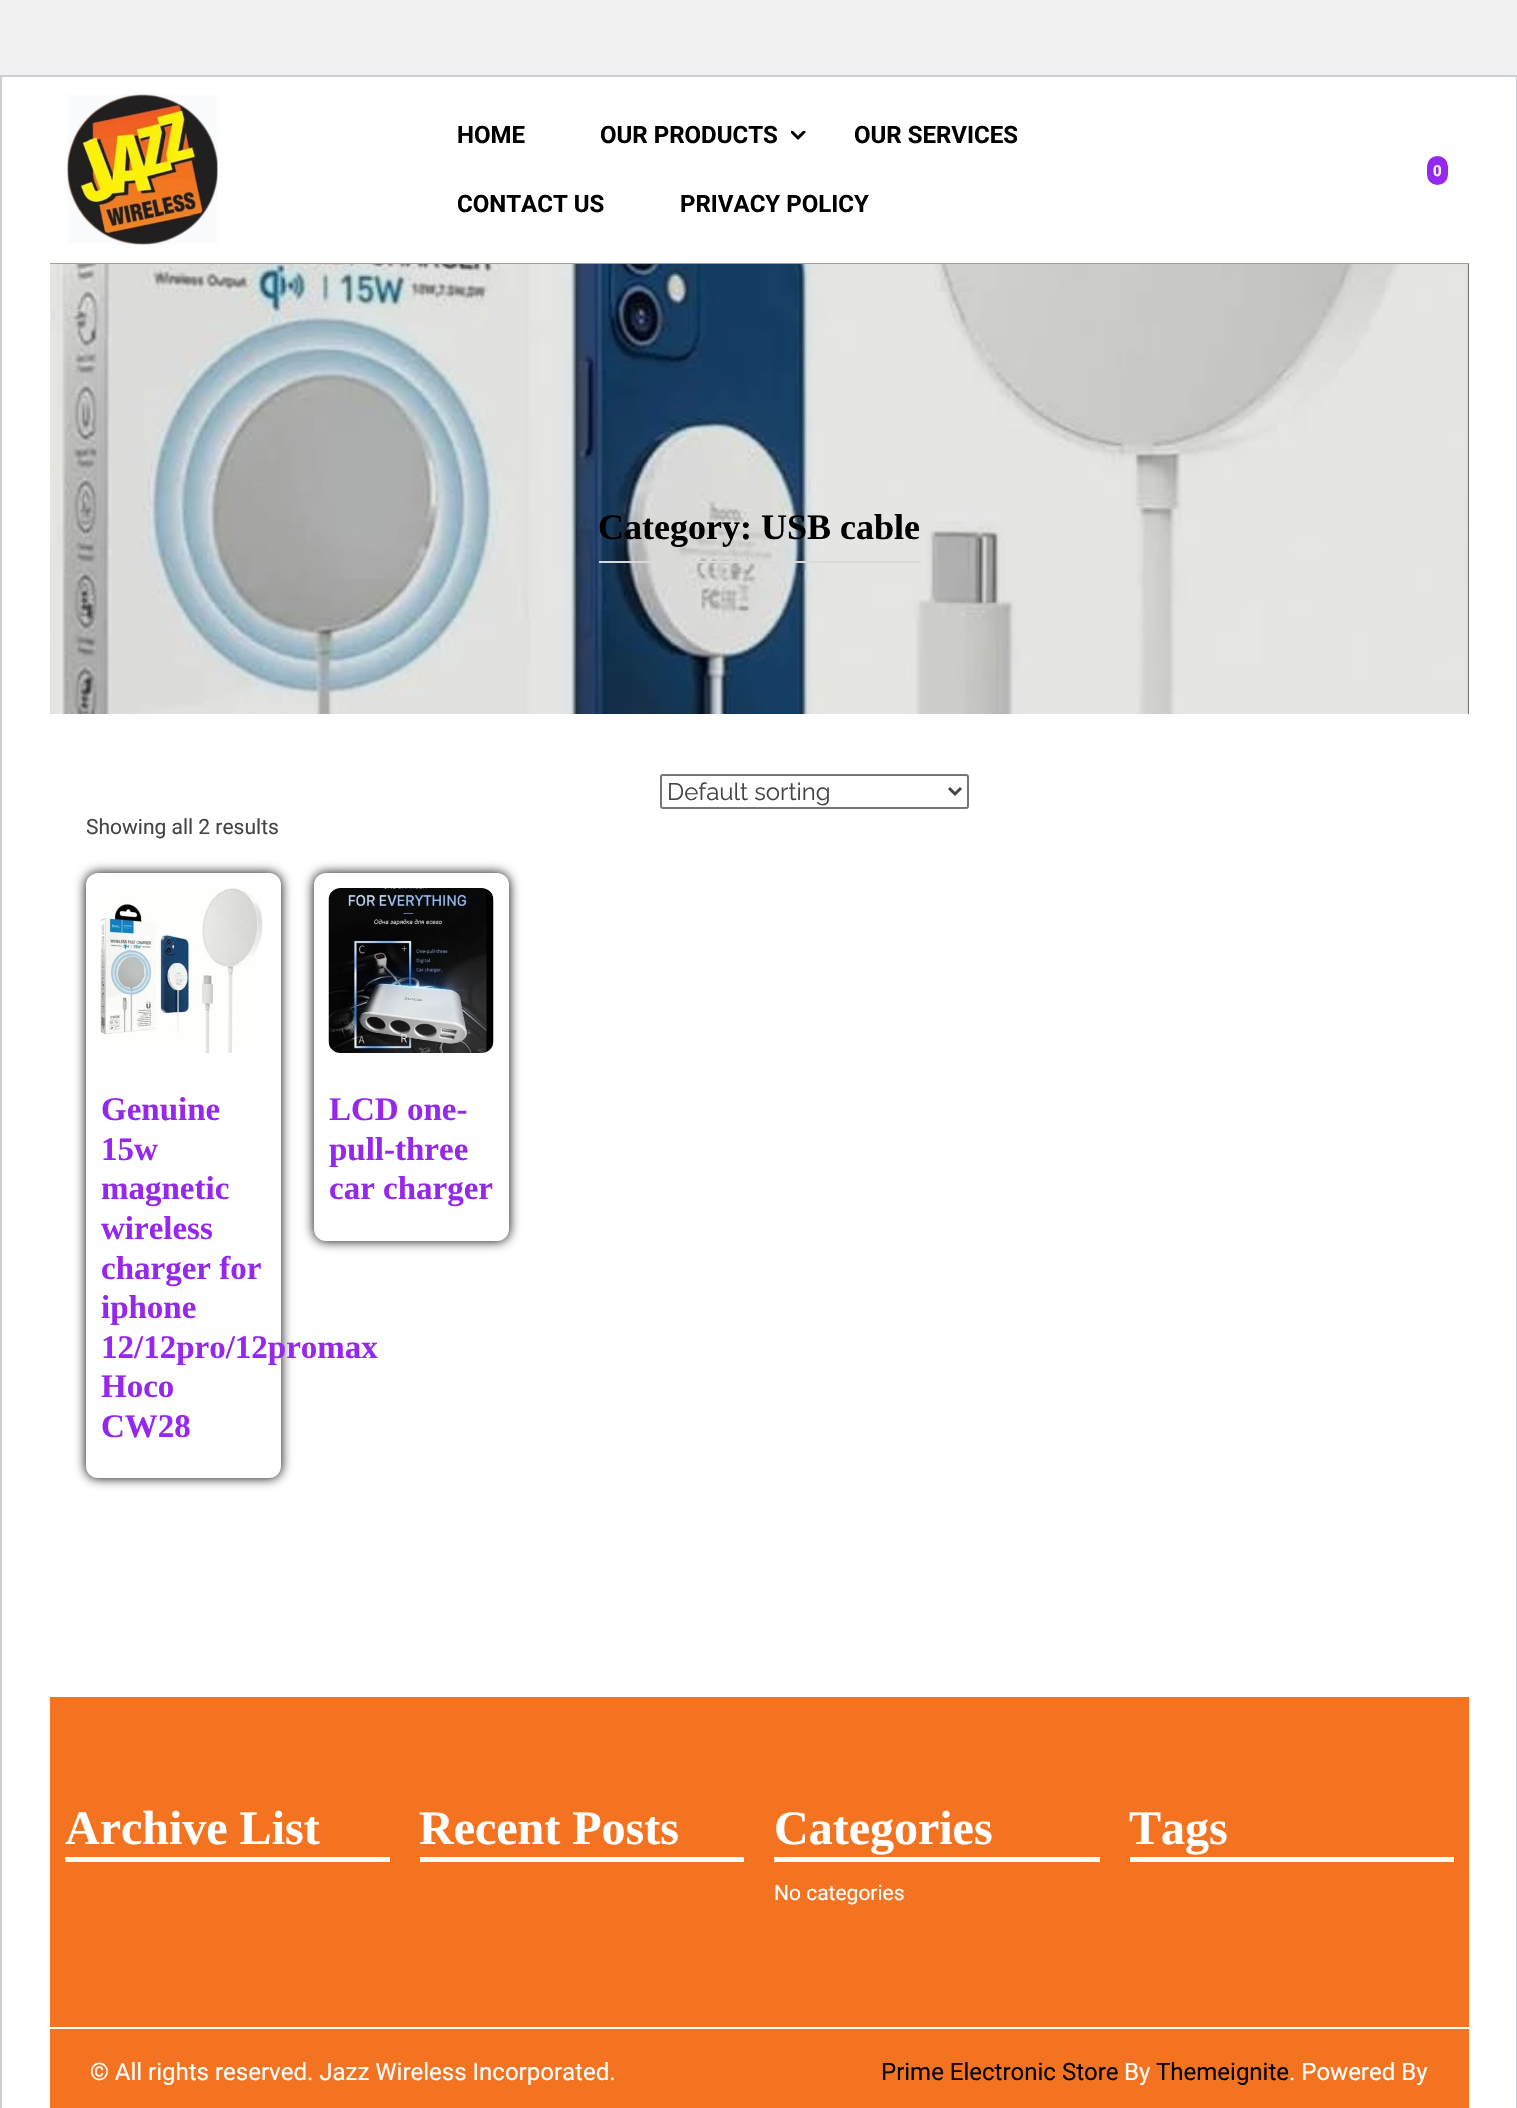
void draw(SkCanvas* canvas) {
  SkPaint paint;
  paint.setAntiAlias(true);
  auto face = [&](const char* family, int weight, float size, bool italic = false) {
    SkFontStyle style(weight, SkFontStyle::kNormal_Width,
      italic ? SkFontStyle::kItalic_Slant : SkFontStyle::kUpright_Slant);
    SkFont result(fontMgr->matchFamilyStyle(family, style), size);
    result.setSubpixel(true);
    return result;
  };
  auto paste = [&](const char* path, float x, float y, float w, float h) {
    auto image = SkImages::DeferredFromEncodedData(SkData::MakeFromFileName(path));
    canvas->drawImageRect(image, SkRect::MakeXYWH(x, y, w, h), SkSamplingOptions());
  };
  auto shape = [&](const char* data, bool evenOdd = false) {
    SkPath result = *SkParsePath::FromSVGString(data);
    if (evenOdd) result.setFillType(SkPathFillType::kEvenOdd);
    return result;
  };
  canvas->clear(0xfff1f1f1);
  paint.setColor(0xffffffff);
  canvas->drawRect(SkRect::MakeXYWH(1, 76, 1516, 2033), paint);
  paint.setStroke(true);
  paint.setStrokeWidth(2);
  paint.setColor(0xffccd0d4);
  canvas->drawRect(SkRect::MakeXYWH(1, 76, 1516, 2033), paint);
  paint.setStroke(false);
  paint.setColor(0xff999eb5);
  canvas->drawRect(SkRect::MakeXYWH(50, 263, 1419, 1), paint);
  paste("img/1.png", 67, 94, 151, 151);
  canvas->save();
  canvas->clipRect(SkRect::MakeXYWH(791, 131, 15, 9));
  paint.setStroke(true);
  paint.setStrokeWidth(3);
  paint.setStrokeCap(SkPaint::kRound_Cap);
  paint.setStrokeJoin(SkPaint::kRound_Join);
  paint.setColor(0xff000000);
  canvas->drawPath(shape("M804 132L798 138L792 132"), paint);
  canvas->restore();
  paint.setStroke(false);
  paint.setColor(0xff9627ed);
  canvas->drawRoundRect(SkRect::MakeXYWH(1427, 156, 21, 29), 10.5f, 10.5f, paint);
  paint.setColor(0xff000000);
  canvas->drawRect(SkRect::MakeXYWH(50, 264, 1419, 450), paint);
  paste("img/2.png", 49, 264, 1420, 450);
  paint.setColor(0xffdadada);
  canvas->drawRect(SkRect::MakeXYWH(599, 561, 322, 2), paint);
  paint.setStroke(true);
  paint.setStrokeWidth(2);
  paint.setStrokeCap(SkPaint::kButt_Cap);
  paint.setStrokeJoin(SkPaint::kMiter_Join);
  paint.setColor(0xff767676);
  canvas->drawRoundRect(SkRect::MakeXYWH(661, 775, 307, 33), 2, 2, paint);
  paint.setStrokeWidth(3);
  paint.setColor(0xff464544);
  canvas->drawPath(shape("M949 788L955 794L961 788"), paint);
  paint.setStroke(false);
  paint.setColor(0xff000000);
  paint.setMaskFilter(SkMaskFilter::MakeBlur(kNormal_SkBlurStyle, 6));
  canvas->drawRoundRect(SkRect::MakeXYWH(86, 873, 195, 605), 12, 12, paint);
  paint.setMaskFilter(nullptr);
  paint.setColor(0xffffffff);
  canvas->drawRoundRect(SkRect::MakeXYWH(86, 873, 195, 605), 12, 12, paint);
  paste("img/3.png", 100, 888, 163, 165);
  paint.setColor(0xff000000);
  paint.setMaskFilter(SkMaskFilter::MakeBlur(kNormal_SkBlurStyle, 6));
  canvas->drawRoundRect(SkRect::MakeXYWH(314, 873, 195, 368), 12, 12, paint);
  paint.setMaskFilter(nullptr);
  paint.setColor(0xffffffff);
  canvas->drawRoundRect(SkRect::MakeXYWH(314, 873, 195, 368), 12, 12, paint);
  paste("img/4.png", 328, 888, 166, 165);
  {
    const struct { float x, y, w, h; SkColor color; } items[] = {
      {50, 1697, 1419, 411, 0xfff37320},
      {50, 2027, 1419, 2, 0xffffffff},
      {65, 1857, 325, 5, 0xffffffff},
      {420, 1857, 324, 5, 0xffffffff},
      {774, 1857, 326, 5, 0xffffffff},
      {1130, 1857, 324, 5, 0xffffffff},
    };
    for (auto [x, y, w, h, color] : items) {
      paint.setColor(color);
      canvas->drawRect(SkRect::MakeXYWH(x, y, w, h), paint);
    }
  }
  auto f0 = face("Roboto", 700, 24);
  paint.setColor(0xff000000);
  {
    const struct { const char* s; float x, y; } items[] = {
      {"HOME", 457, 143},
      {"OUR PRODUCTS", 600, 143},
      {"OUR SERVICES", 854, 143},
      {"CONTACT US", 457, 212},
      {"PRIVACY POLICY", 680, 212},
    };
    for (auto [s, x, y] : items) {
      canvas->drawString(s, x, y, f0, paint);
    }
  }
  auto f1 = face("Roboto", 700, 15);
  paint.setColor(0xffffffff);
  canvas->drawString("0", 1433, 176, f1, paint);
  auto f2 = face("Liberation Serif", 700, 36);
  paint.setColor(0xff000000);
  canvas->drawString("Category: USB cable", 598, 539, f2, paint);
  auto f3 = face("Raleway", 400, 24);
  paint.setColor(0xff444444);
  canvas->drawString("Default sorting", 667, 800, f3, paint);
  auto f4 = face("Roboto", 400, 21);
  canvas->drawString("Showing all 2 results", 86, 834, f4, paint);
  auto f5 = face("Liberation Serif", 700, 33);
  paint.setColor(0xff9627ed);
  {
    const struct { const char* s; float x, y; } items[] = {
      {"Genuine", 101, 1120},
      {"15w", 101, 1160},
      {"magnetic", 101, 1199},
      {"wireless", 101, 1239},
      {"charger for", 101, 1279},
      {"iphone", 101, 1318},
      {"12/12pro/12promax", 101, 1358},
      {"Hoco", 101, 1397},
      {"CW28", 101, 1437},
      {"LCD one-", 329, 1120},
      {"pull-three", 329, 1160},
      {"car charger", 329, 1199},
    };
    for (auto [s, x, y] : items) {
      canvas->drawString(s, x, y, f5, paint);
    }
  }
  auto f6 = face("Liberation Serif", 700, 48);
  paint.setColor(0xffffffff);
  {
    const struct { const char* s; float x, y; } items[] = {
      {"Archive List", 65, 1844},
      {"Recent Posts", 419, 1844},
      {"Categories", 774, 1844},
    };
    for (auto [s, x, y] : items) {
      canvas->drawString(s, x, y, f6, paint);
    }
  }
  canvas->drawString("No categories", 774, 1900, f4, paint);
  canvas->drawString("Tags", 1129, 1844, f6, paint);
  auto f7 = face("Roboto", 400, 24);
  canvas->drawString("© All rights reserved. Jazz Wireless Incorporated.", 90, 2080, f7, paint);
  paint.setColor(0xff000000);
  canvas->drawString("Prime Electronic Store", 881, 2080, f7, paint);
  paint.setColor(0xffffffff);
  canvas->drawString("By", 1124, 2080, f7, paint);
  paint.setColor(0xff000000);
  canvas->drawString("Themeignite", 1156, 2080, f7, paint);
  paint.setColor(0xffffffff);
  canvas->drawString(". Powered By", 1289, 2080, f7, paint);
}
